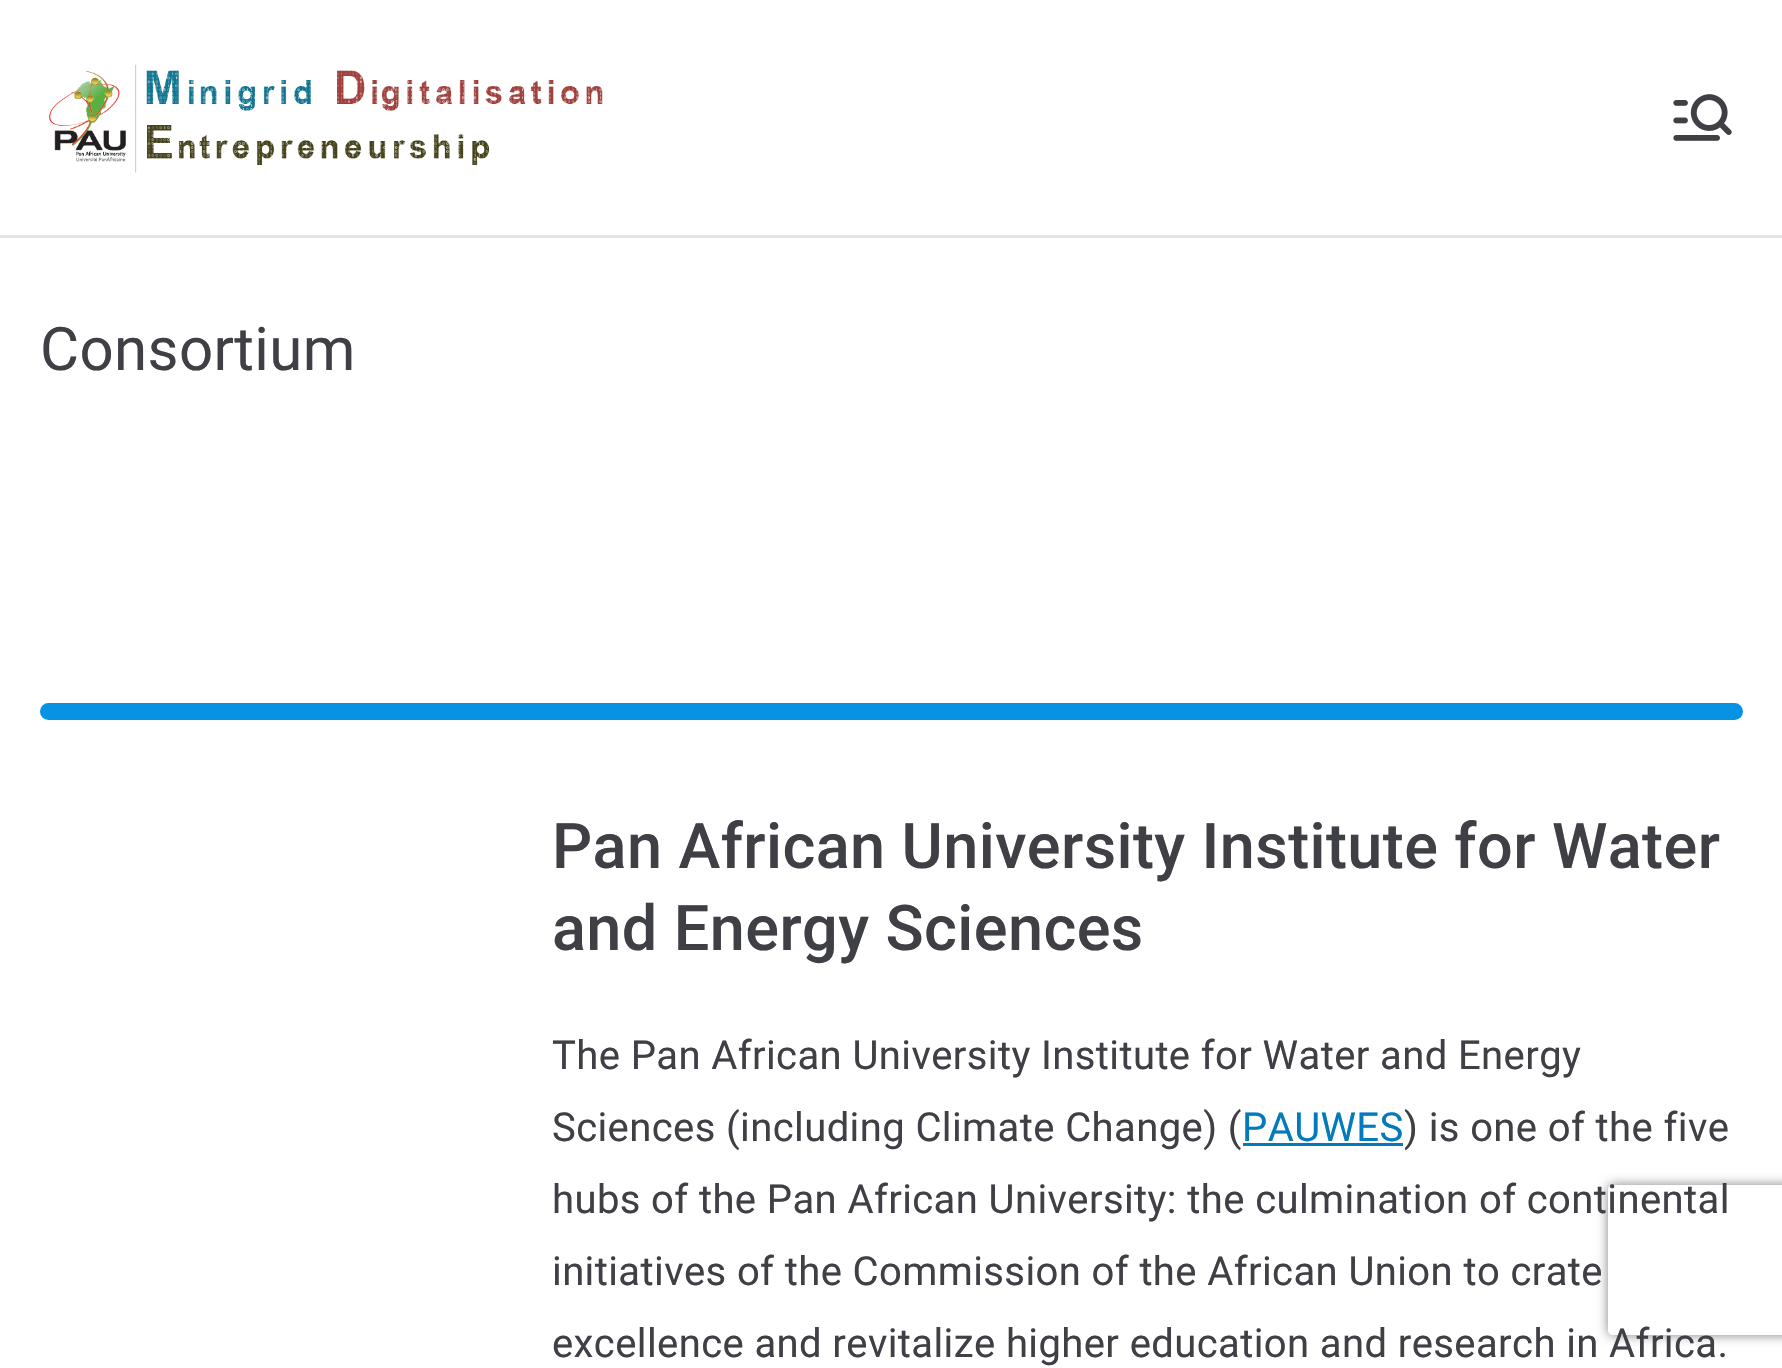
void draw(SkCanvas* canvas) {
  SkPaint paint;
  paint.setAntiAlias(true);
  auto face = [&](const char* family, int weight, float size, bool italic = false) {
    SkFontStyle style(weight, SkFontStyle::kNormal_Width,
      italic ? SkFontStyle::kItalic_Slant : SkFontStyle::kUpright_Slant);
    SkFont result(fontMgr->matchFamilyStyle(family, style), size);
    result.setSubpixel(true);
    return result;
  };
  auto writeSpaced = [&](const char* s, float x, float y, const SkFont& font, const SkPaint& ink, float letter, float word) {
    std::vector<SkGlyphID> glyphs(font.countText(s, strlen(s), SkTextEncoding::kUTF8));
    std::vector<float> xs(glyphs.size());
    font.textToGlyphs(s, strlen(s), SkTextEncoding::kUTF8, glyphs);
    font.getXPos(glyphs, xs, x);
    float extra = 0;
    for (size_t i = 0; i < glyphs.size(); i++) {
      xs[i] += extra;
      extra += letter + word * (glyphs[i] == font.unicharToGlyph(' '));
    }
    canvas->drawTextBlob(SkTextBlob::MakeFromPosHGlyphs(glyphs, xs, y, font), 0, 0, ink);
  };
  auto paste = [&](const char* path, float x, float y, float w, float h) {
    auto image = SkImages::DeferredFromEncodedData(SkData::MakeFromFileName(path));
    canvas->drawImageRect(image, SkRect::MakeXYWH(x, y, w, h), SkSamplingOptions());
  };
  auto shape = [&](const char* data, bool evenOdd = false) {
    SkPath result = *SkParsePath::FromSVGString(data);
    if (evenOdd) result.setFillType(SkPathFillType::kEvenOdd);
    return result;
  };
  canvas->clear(0xffe4e4e7);
  paint.setColor(0xffffffff);
  canvas->drawRect(SkRect::MakeXYWH(0, 0, 1782, 235), paint);
  paste("img/1.png", 49, 64, 554, 109);
  paste("img/2.png", 1673, 94, 59, 47);
  canvas->drawRect(SkRect::MakeXYWH(0, 238, 1782, 1130), paint);
  paint.setColor(0xff0693e3);
  canvas->drawRoundRect(SkRect::MakeXYWH(40, 703, 1703, 17), 8.5f, 8.5f, paint);
  paint.setColor(0xff027abb);
  canvas->drawRect(SkRect::MakeXYWH(1243, 1143, 160, 3), paint);
  canvas->save();
  canvas->clipPath(shape("M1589 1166H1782V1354H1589ZM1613 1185H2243C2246 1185 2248 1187 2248 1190V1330C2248 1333 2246 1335 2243 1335H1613C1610 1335 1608 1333 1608 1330V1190C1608 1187 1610 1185 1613 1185Z", true), true);
  paint.setColor(0xff808080);
  paint.setMaskFilter(SkMaskFilter::MakeBlur(kNormal_SkBlurStyle, 6));
  canvas->drawRoundRect(SkRect::MakeXYWH(1608, 1185, 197, 150), 5, 5, paint);
  paint.setMaskFilter(nullptr);
  canvas->restore();
  auto f0 = face("Roboto", 400, 60);
  paint.setColor(0xff3f3f46);
  writeSpaced("Consortium", 40, 370, f0, paint, 0.4f, 0);
  auto f1 = face("Roboto", 500, 63);
  writeSpaced("Pan African University Institute for Water", 552, 868, f1, paint, 0.4f, 0);
  writeSpaced("and Energy Sciences", 552, 950, f1, paint, 0.4f, 0);
  auto f2 = face("Roboto", 400, 40);
  writeSpaced("The Pan African University Institute for Water and Energy", 552, 1069, f2, paint, 0.4f, 0);
  writeSpaced("Sciences (including Climate Change) (", 552, 1141, f2, paint, 0.4f, 0);
  paint.setColor(0xff027abb);
  writeSpaced("PAUWES", 1242, 1141, f2, paint, 0.4f, 0);
  paint.setColor(0xff3f3f46);
  {
    const struct { const char* s; float x, y; } items[] = {
      {") is one of the five", 1404, 1141},
      {"hubs of the Pan African University: the culmination of continental", 552, 1213},
      {"initiatives of the Commission of the African Union to crate", 552, 1285},
      {"excellence and revitalize higher education and research in Africa.", 552, 1357},
    };
    for (auto [s, x, y] : items) {
      writeSpaced(s, x, y, f2, paint, 0.4f, 0);
    }
  }
}
